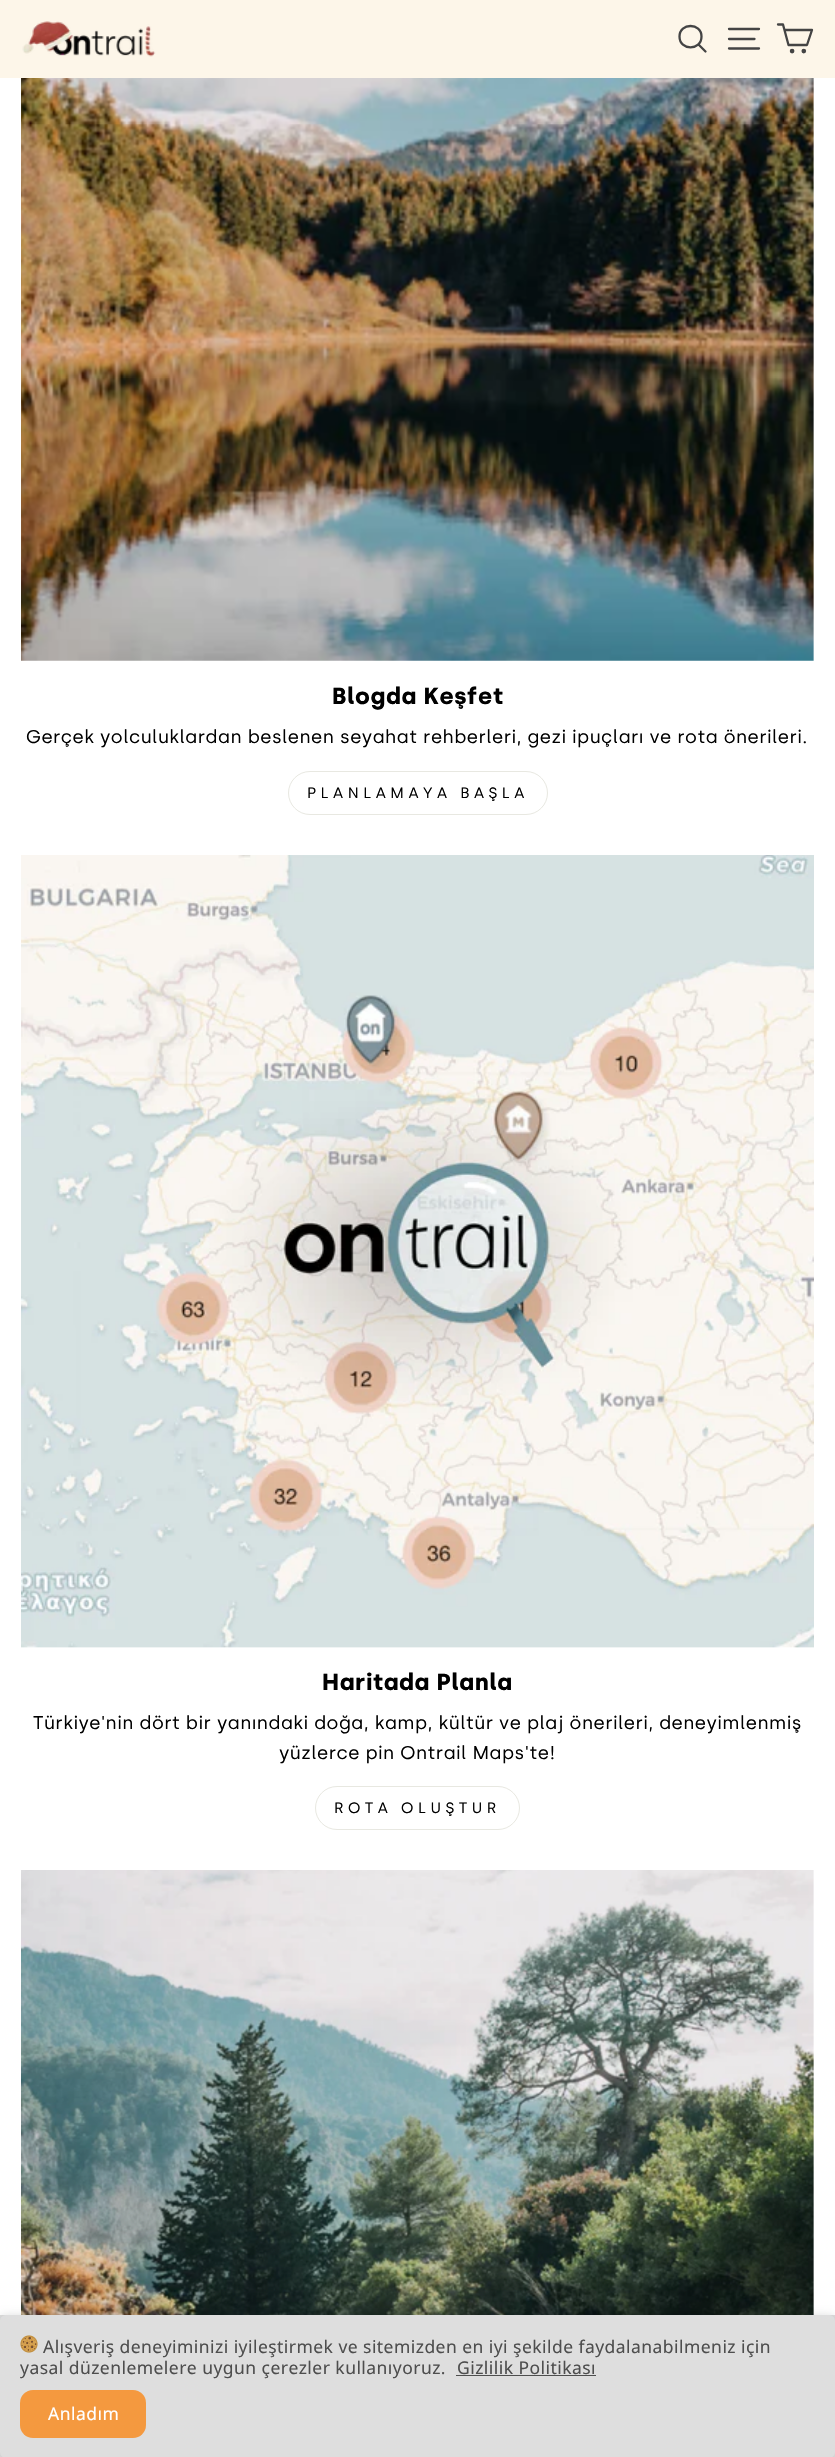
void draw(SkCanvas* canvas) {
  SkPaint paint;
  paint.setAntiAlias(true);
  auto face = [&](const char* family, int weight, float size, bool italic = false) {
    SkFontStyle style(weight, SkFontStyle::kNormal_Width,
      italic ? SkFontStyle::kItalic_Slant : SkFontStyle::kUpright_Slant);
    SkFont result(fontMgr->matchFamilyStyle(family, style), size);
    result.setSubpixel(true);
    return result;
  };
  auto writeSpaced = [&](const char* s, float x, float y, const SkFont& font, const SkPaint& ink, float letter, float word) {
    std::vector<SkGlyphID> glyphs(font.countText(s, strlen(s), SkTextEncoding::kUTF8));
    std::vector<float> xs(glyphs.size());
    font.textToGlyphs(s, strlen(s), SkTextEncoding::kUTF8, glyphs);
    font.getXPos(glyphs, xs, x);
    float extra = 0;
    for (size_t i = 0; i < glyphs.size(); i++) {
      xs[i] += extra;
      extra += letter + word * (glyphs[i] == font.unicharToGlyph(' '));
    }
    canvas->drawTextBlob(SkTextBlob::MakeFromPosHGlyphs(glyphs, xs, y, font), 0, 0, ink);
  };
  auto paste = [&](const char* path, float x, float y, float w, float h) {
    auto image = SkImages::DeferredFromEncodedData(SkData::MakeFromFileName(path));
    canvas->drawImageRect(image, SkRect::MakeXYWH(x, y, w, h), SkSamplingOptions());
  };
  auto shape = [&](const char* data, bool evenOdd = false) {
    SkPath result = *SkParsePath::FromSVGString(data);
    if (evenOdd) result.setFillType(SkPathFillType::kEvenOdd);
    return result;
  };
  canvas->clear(0xffffffff);
  paint.setColor(0xfffdf6e9);
  canvas->drawRect(SkRect::MakeXYWH(0, 0, 835, 78), paint);
  paste("img/1.png", 22, 21, 134, 36);
  paint.setStroke(true);
  paint.setStrokeWidth(2.3f);
  paint.setStrokeCap(SkPaint::kRound_Cap);
  paint.setStrokeJoin(SkPaint::kRound_Join);
  paint.setColor(0xff444444);
  canvas->drawPath(shape("M701.5 36.5C701.5 51 679.5 51 679.5 36.5C679.5 22.5 701.5 22.5 701.5 36.5ZM705.5 51.5L698.5 44.5"), paint);
  canvas->drawPath(shape("M729 29H759M729 39H754.5M729 48.5H759"), paint);
  canvas->drawPath(shape("M784.5 30H812L807 45H788.5L783 24.5H778"), paint);
  paint.setStrokeCap(SkPaint::kButt_Cap);
  paint.setStrokeJoin(SkPaint::kMiter_Join);
  canvas->drawCircle(792.1f, 51.1f, 1.2f, paint);
  canvas->drawCircle(803.8f, 51.1f, 1.2f, paint);
  paste("img/2.png", 21, 78, 793, 583);
  paint.setStrokeWidth(1);
  paint.setColor(0xffe8e8e1);
  canvas->drawRoundRect(SkRect::MakeXYWH(288.5f, 771.5f, 259, 43), 21.5f, 21.5f, paint);
  paste("img/3.png", 21, 855, 793, 793);
  canvas->drawRoundRect(SkRect::MakeXYWH(315.5f, 1786.5f, 204, 43), 21.5f, 21.5f, paint);
  paste("img/4.png", 21, 1870, 793, 445);
  paint.setStroke(false);
  paint.setColor(0xffdedede);
  canvas->drawRect(SkRect::MakeXYWH(0, 2315, 835, 142), paint);
  canvas->save();
  canvas->clipPath(shape("M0 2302H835V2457H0ZM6 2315H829C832.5 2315 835 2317.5 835 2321V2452C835 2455.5 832.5 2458 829 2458H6C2.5 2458 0 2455.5 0 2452V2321C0 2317.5 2.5 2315 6 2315Z", true), true);
  paint.setColor(0x1f000000);
  paint.setMaskFilter(SkMaskFilter::MakeBlur(kNormal_SkBlurStyle, 4));
  canvas->drawRoundRect(SkRect::MakeXYWH(0, 2315, 835, 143), 6, 6, paint);
  paint.setMaskFilter(nullptr);
  canvas->restore();
  paste("img/5.png", 20, 2335, 18, 18);
  paint.setColor(0xff4e4e4e);
  canvas->drawRect(SkRect::MakeXYWH(456, 2375, 140, 1), paint);
  paint.setColor(0xfff4993f);
  canvas->drawRoundRect(SkRect::MakeXYWH(20, 2390, 126, 48), 13, 13, paint);
  auto f0 = face("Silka", 700, 23.25f);
  paint.setColor(0xff000000);
  writeSpaced("Blogda Keşfet", 332, 704, f0, paint, 0.6f, 0);
  auto f1 = face("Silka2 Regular", 400, 18.4f);
  writeSpaced("Gerçek yolculuklardan beslenen seyahat rehberleri, gezi ipuçları ve rota önerileri.", 26, 743, f1, paint, 0.45f, 0);
  auto f2 = face("Silka2 Regular", 400, 15);
  writeSpaced("PLANLAMAYA BAŞLA", 307, 798, f2, paint, 4.5f, 0);
  writeSpaced("Haritada Planla", 322, 1690, f0, paint, 0.6f, 0);
  writeSpaced("Türkiye'nin dört bir yanındaki doğa, kamp, kültür ve plaj önerileri, deneyimlenmiş", 33, 1729, f1, paint, 0.45f, 0);
  writeSpaced("yüzlerce pin Ontrail Maps'te!", 279, 1759, f1, paint, 0.45f, 0);
  writeSpaced("ROTA OLUŞTUR", 334, 1813, f2, paint, 4.5f, 0);
  auto f3 = face("Noto Sans", 400, 17.5f);
  paint.setColor(0xff4e4e4e);
  {
    const struct { const char* s; float x, y; } items[] = {
      {"Alışveriş deneyiminizi iyileştirmek ve sitemizden en iyi şekilde faydalanabilmeniz için", 43, 2353},
      {"yasal düzenlemelere uygun çerezler kullanıyoruz.", 20, 2374},
      {"Gizlilik Politikası", 457, 2374},
    };
    for (auto [s, x, y] : items) {
      writeSpaced(s, x, y, f3, paint, 0.45f, 0);
    }
  }
  paint.setColor(0xffffffff);
  writeSpaced("Anladım", 48, 2420, f3, paint, 0.5f, 0);
}
